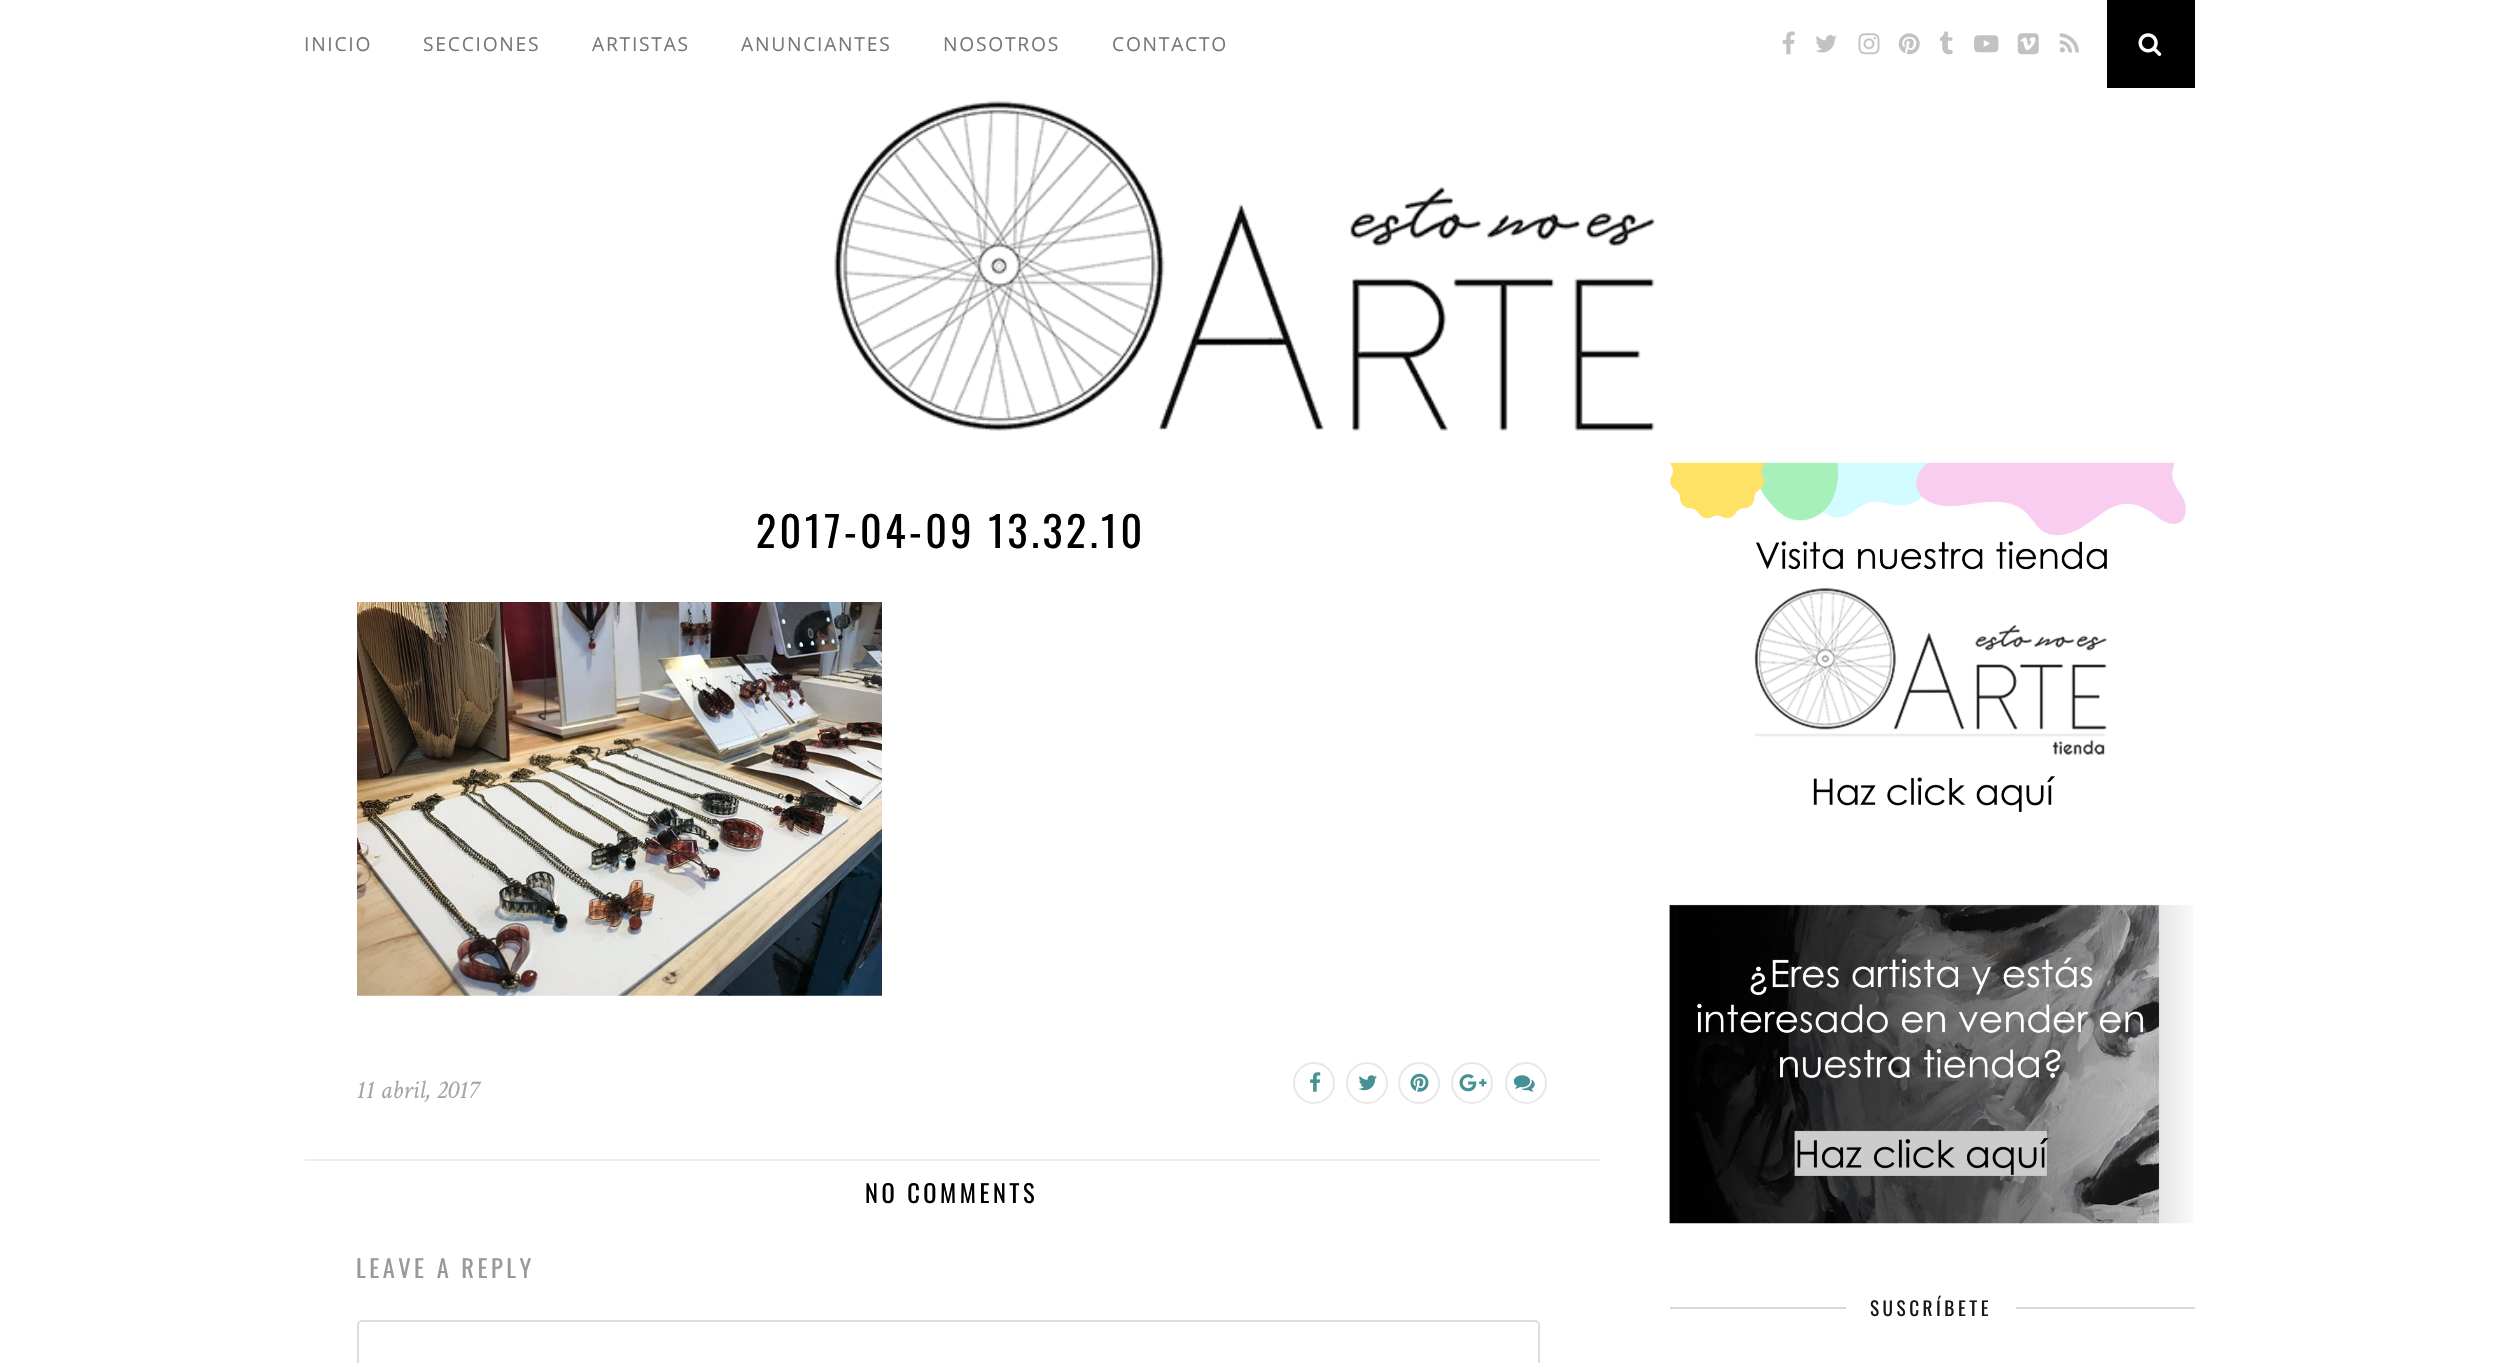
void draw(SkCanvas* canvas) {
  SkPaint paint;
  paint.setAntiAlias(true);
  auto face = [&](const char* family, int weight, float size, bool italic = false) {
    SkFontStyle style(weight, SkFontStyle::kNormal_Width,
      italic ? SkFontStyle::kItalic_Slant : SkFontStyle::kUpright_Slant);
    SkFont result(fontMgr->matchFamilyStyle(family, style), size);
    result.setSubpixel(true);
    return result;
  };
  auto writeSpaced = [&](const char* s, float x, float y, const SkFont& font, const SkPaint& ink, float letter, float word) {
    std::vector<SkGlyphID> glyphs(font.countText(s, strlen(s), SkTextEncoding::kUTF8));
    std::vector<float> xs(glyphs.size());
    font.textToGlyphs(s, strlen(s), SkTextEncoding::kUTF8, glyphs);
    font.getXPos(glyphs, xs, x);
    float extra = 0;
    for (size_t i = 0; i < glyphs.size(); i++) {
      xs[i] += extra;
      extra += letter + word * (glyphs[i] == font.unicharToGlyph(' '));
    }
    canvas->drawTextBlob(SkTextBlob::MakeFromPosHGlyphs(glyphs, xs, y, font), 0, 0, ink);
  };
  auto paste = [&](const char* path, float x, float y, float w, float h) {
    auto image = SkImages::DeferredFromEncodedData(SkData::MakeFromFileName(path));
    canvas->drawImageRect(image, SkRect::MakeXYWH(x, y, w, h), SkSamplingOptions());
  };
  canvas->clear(0xffffffff);
  paste("img/1.png", 1782, 31, 13, 24);
  paste("img/2.png", 1815, 35, 22, 18);
  paste("img/3.png", 1858, 33, 22, 22);
  paste("img/4.png", 1898, 33, 22, 22);
  paste("img/5.png", 1939, 31, 14, 24);
  paste("img/6.png", 1974, 35, 25, 18);
  paste("img/7.png", 2017, 33, 22, 22);
  paste("img/8.png", 2059, 33, 20, 20);
  paint.setColor(0xff000000);
  canvas->drawRect(SkRect::MakeXYWH(2107, 0, 88, 88), paint);
  paste("img/9.png", 2138, 33, 24, 23);
  paste("img/10.png", 834, 101, 821, 330);
  paste("img/11.png", 357, 602, 525, 394);
  paint.setStroke(true);
  paint.setStrokeWidth(2);
  paint.setColor(0xffe8e8e8);
  canvas->drawCircle(1314, 1083, 20, paint);
  paste("img/12.png", 1310, 1072, 11, 20);
  canvas->drawCircle(1367, 1083, 20, paint);
  paste("img/13.png", 1358, 1075, 19, 16);
  canvas->drawCircle(1419, 1083, 20, paint);
  paste("img/14.png", 1410, 1073, 19, 19);
  canvas->drawCircle(1472, 1083, 20, paint);
  paste("img/15.png", 1459, 1074, 28, 18);
  canvas->drawCircle(1526, 1083, 20, paint);
  paste("img/16.png", 1513, 1075, 22, 17);
  paint.setStroke(false);
  paint.setColor(0xffeeeeee);
  canvas->drawRect(SkRect::MakeXYWH(305, 1159, 1295, 2), paint);
  paint.setStroke(true);
  paint.setColor(0xffdddddd);
  canvas->drawRoundRect(SkRect::MakeXYWH(358, 1321, 1181, 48), 4, 4, paint);
  paste("img/17.png", 1670, 462, 516, 350);
  paste("img/18.png", 1669, 904, 524, 320);
  paint.setStroke(false);
  paint.setColor(0xffd8d8d8);
  canvas->drawRect(SkRect::MakeXYWH(1670, 1307, 176, 2), paint);
  canvas->drawRect(SkRect::MakeXYWH(2016, 1307, 179, 2), paint);
  auto f0 = face("Open Sans", 400, 19.25f);
  paint.setColor(0xff777777);
  {
    const struct { const char* s; float x, y; } items[] = {
      {"INICIO", 304, 51},
      {"SECCIONES", 423, 51},
      {"ARTISTAS", 592, 51},
      {"ANUNCIANTES", 741, 51},
      {"NOSOTROS", 943, 51},
      {"CONTACTO", 1112, 51},
    };
    for (auto [s, x, y] : items) {
      writeSpaced(s, x, y, f0, paint, 1.75f, 0);
    }
  }
  auto f1 = face("Oswald", 400, 42);
  paint.setColor(0xff000000);
  writeSpaced("2017-04-09 13.32.10", 756, 548, f1, paint, 3.5f, 0);
  auto f2 = face("Crimson Text", 400, 26.25f, true);
  paint.setColor(0xffa5a5a5);
  canvas->drawString("11 abril, 2017", 356, 1098, f2, paint);
  auto f3 = face("Oswald", 400, 24.5f);
  paint.setColor(0xff000000);
  writeSpaced("NO COMMENTS", 865, 1203, f3, paint, 3.5f, 0);
  paint.setColor(0xff999999);
  writeSpaced("LEAVE A REPLY", 356, 1278, f3, paint, 3.5f, 0);
  auto f4 = face("Oswald", 400, 19.25f);
  paint.setColor(0xff161616);
  writeSpaced("SUSCRÍBETE", 1870, 1316, f4, paint, 3.5f, 0);
}
